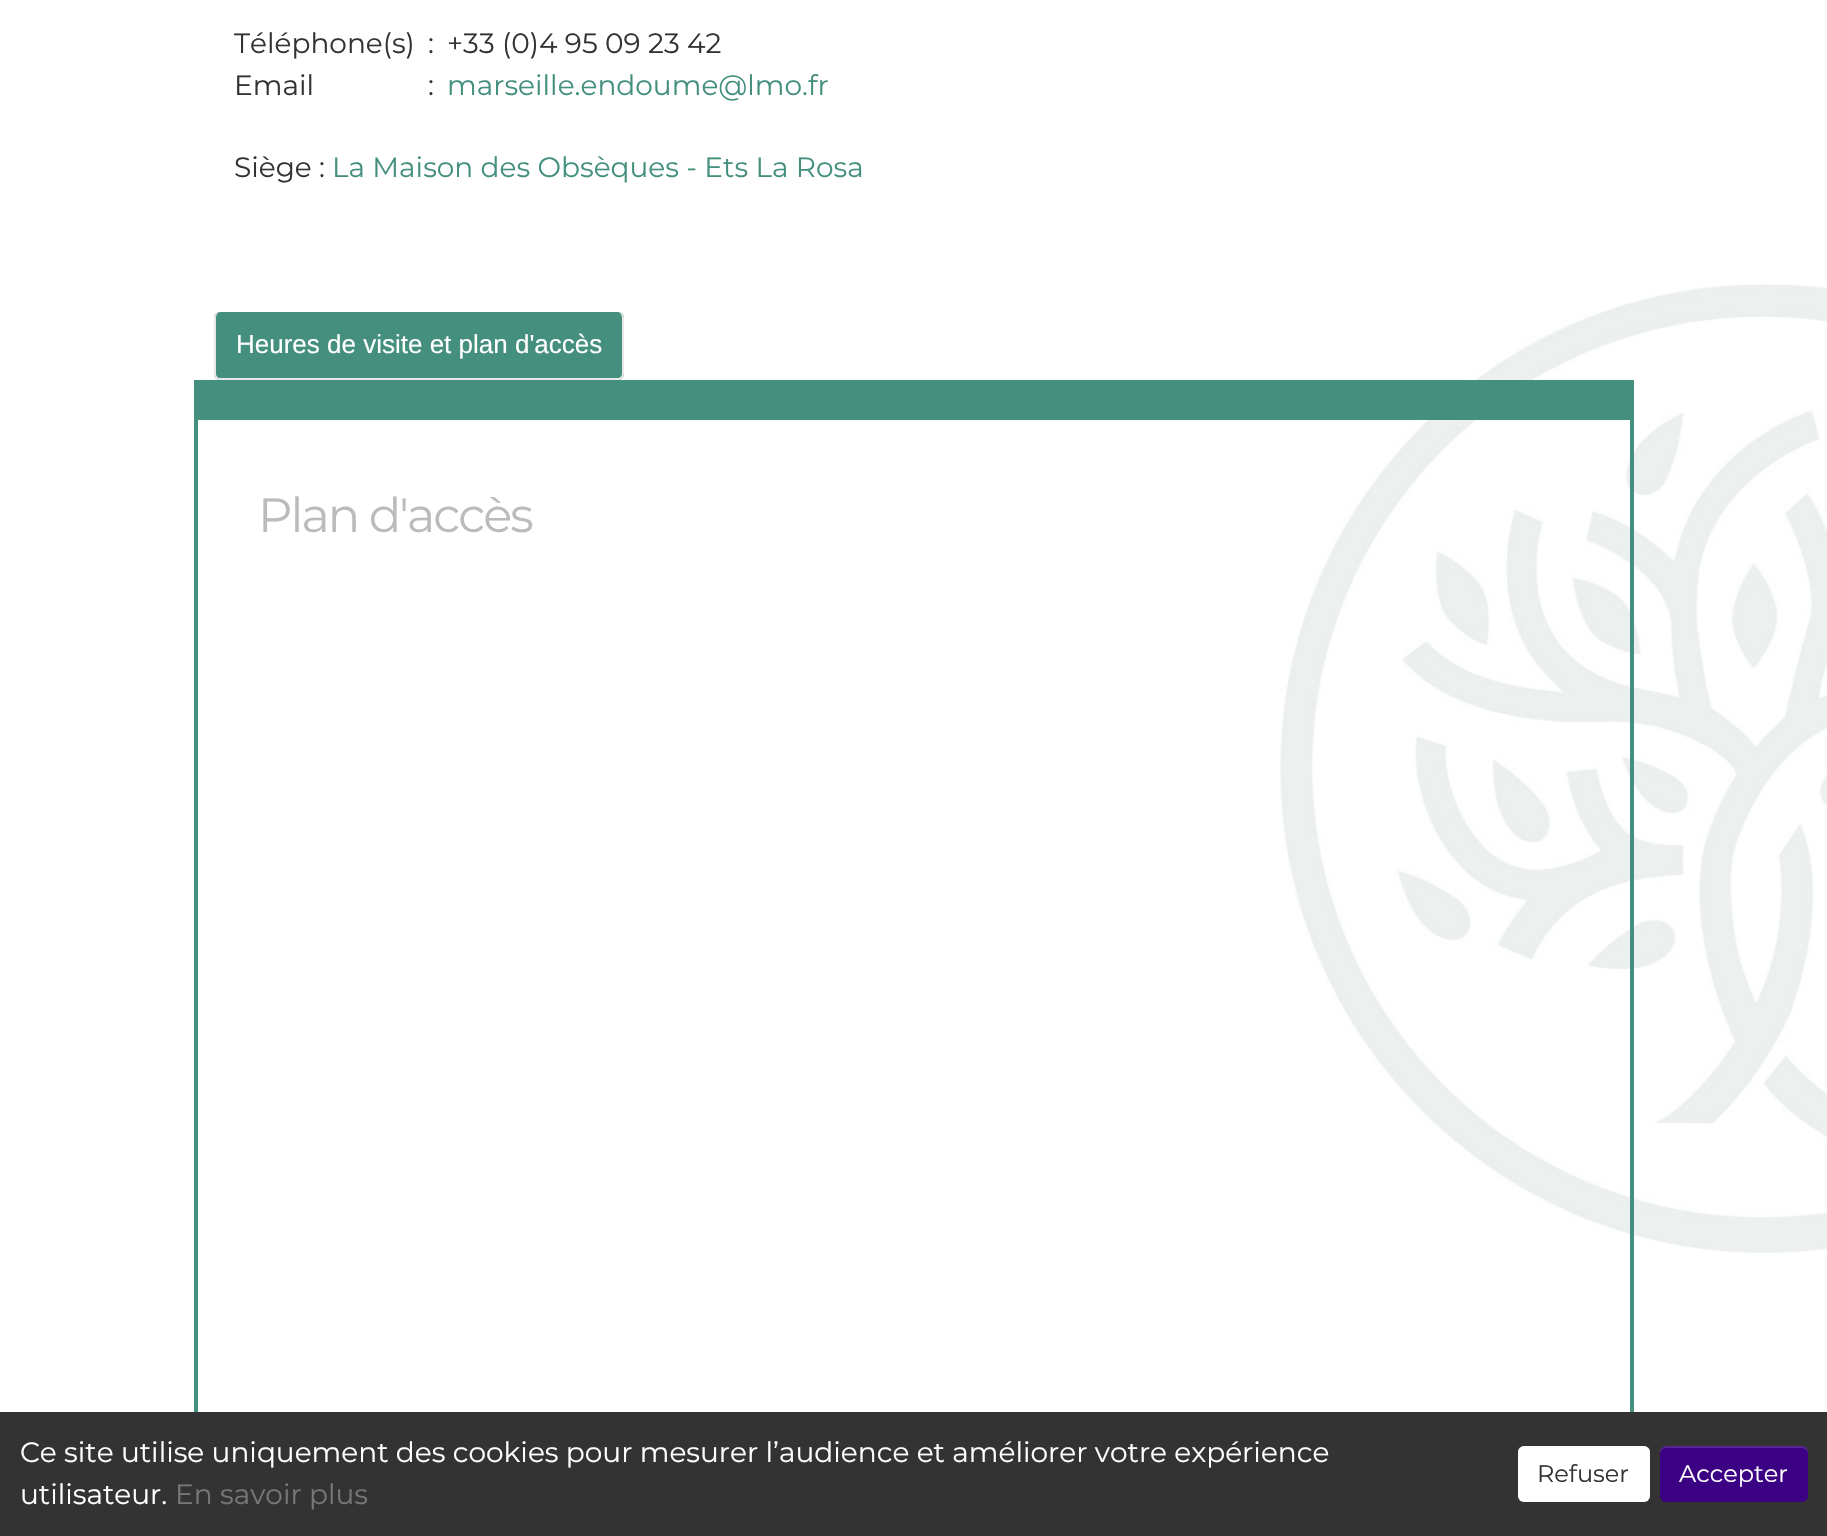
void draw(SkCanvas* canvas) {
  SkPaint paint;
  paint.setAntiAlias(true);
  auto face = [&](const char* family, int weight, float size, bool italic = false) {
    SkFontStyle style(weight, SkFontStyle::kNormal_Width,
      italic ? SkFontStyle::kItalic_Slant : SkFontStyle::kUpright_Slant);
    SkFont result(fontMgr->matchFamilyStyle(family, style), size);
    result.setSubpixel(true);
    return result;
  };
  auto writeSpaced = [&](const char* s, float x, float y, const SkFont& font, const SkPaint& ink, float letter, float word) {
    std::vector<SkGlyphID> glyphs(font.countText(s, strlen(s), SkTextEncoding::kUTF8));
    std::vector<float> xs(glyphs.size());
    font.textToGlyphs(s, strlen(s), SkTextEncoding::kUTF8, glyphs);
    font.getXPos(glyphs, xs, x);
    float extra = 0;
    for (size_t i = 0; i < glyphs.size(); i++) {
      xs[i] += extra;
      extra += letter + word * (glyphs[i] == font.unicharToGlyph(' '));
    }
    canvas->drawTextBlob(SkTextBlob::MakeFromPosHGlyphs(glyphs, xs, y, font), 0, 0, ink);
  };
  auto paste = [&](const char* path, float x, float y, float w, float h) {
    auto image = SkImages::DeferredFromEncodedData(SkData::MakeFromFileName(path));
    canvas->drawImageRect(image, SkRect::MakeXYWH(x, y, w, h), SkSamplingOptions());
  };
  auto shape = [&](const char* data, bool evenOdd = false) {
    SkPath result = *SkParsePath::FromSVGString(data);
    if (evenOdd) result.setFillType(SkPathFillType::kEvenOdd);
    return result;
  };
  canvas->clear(0xffffffff);
  paste("img/1.png", 1280, 284, 547, 969);
  paint.setColor(0xff448f7d);
  canvas->drawRect(SkRect::MakeXYWH(194, 380, 1440, 40), paint);
  canvas->drawRoundRect(SkRect::MakeXYWH(214, 312, 410, 68), 6, 6, paint);
  paint.setColor(0xffe8e8e8);
  canvas->drawPath(shape("M220 312H618C621 312 624 315 624 318V374C624 377 621 380 618 380H220C217 380 214 377 214 374V318C214 315 217 312 220 312ZM220 312H618C620 312 622 315 622 318V374C622 376 620 378 618 378H220C218 378 216 376 216 374V318C216 315 218 312 220 312Z", true), paint);
  {
    const struct { float x, y, w, h; SkColor color; } items[] = {
      {1630, 420, 4, 992, 0xff448f7d},
      {194, 420, 4, 992, 0xff448f7d},
      {0, 1412, 1827, 124, 0xff333333},
    };
    for (auto [x, y, w, h, color] : items) {
      paint.setColor(color);
      canvas->drawRect(SkRect::MakeXYWH(x, y, w, h), paint);
    }
  }
  paint.setColor(0xffffffff);
  canvas->drawRoundRect(SkRect::MakeXYWH(1518, 1446, 132, 56), 6, 6, paint);
  paint.setColor(0x26ffffff);
  canvas->drawPath(shape("M1524 1448H1644C1647 1448 1650 1451 1650 1454V1452C1650 1449 1647 1446 1644 1446H1524C1521 1446 1518 1449 1518 1452V1454C1518 1451 1521 1448 1524 1448Z"), paint);
  paint.setColor(0xff3b0083);
  canvas->drawRoundRect(SkRect::MakeXYWH(1660, 1446, 148, 56), 6, 6, paint);
  paint.setColor(0x26ffffff);
  canvas->drawPath(shape("M1666 1448H1802C1805 1448 1808 1451 1808 1454V1452C1808 1449 1805 1446 1802 1446H1666C1663 1446 1660 1449 1660 1452V1454C1660 1451 1663 1448 1666 1448Z"), paint);
  auto f0 = face("Montserrat", 100, 28);
  paint.setColor(0xff333333);
  {
    const struct { const char* s; float x, y; } items[] = {
      {"Téléphone(s)", 234, 53},
      {":", 428, 53},
      {"+33 (0)4 95 09 23 42", 447, 53},
      {"Email", 234, 95},
      {":", 428, 95},
    };
    for (auto [s, x, y] : items) {
      canvas->drawString(s, x, y, f0, paint);
    }
  }
  paint.setColor(0xff448f7d);
  canvas->drawString("marseille.endoume@lmo.fr", 447, 95, f0, paint);
  paint.setColor(0xff333333);
  canvas->drawString("Siège :", 234, 177, f0, paint);
  paint.setColor(0xff448f7d);
  canvas->drawString("La Maison des Obsèques - Ets La Rosa", 332, 177, f0, paint);
  auto f1 = face("Liberation Sans", 400, 26);
  paint.setColor(0xffffffff);
  canvas->drawString("Heures de visite et plan d'accès", 236, 353, f1, paint);
  auto f2 = face("Montserrat", 100, 48);
  paint.setColor(0xffbbbbbb);
  writeSpaced("Plan d'accès", 258, 532, f2, paint, -2, 0);
  paint.setColor(0xffffffff);
  canvas->drawString("Ce site utilise uniquement des cookies pour mesurer l’audience et améliorer votre expérience", 20, 1462, f0, paint);
  canvas->drawString("utilisateur.", 20, 1504, f0, paint);
  paint.setColor(0xff777777);
  canvas->drawString("En savoir plus", 175, 1504, f0, paint);
  auto f3 = face("Montserrat", 100, 24);
  paint.setColor(0xff333333);
  canvas->drawString("Refuser", 1537, 1482, f3, paint);
  paint.setColor(0xffffffff);
  canvas->drawString("Accepter", 1679, 1482, f3, paint);
}
